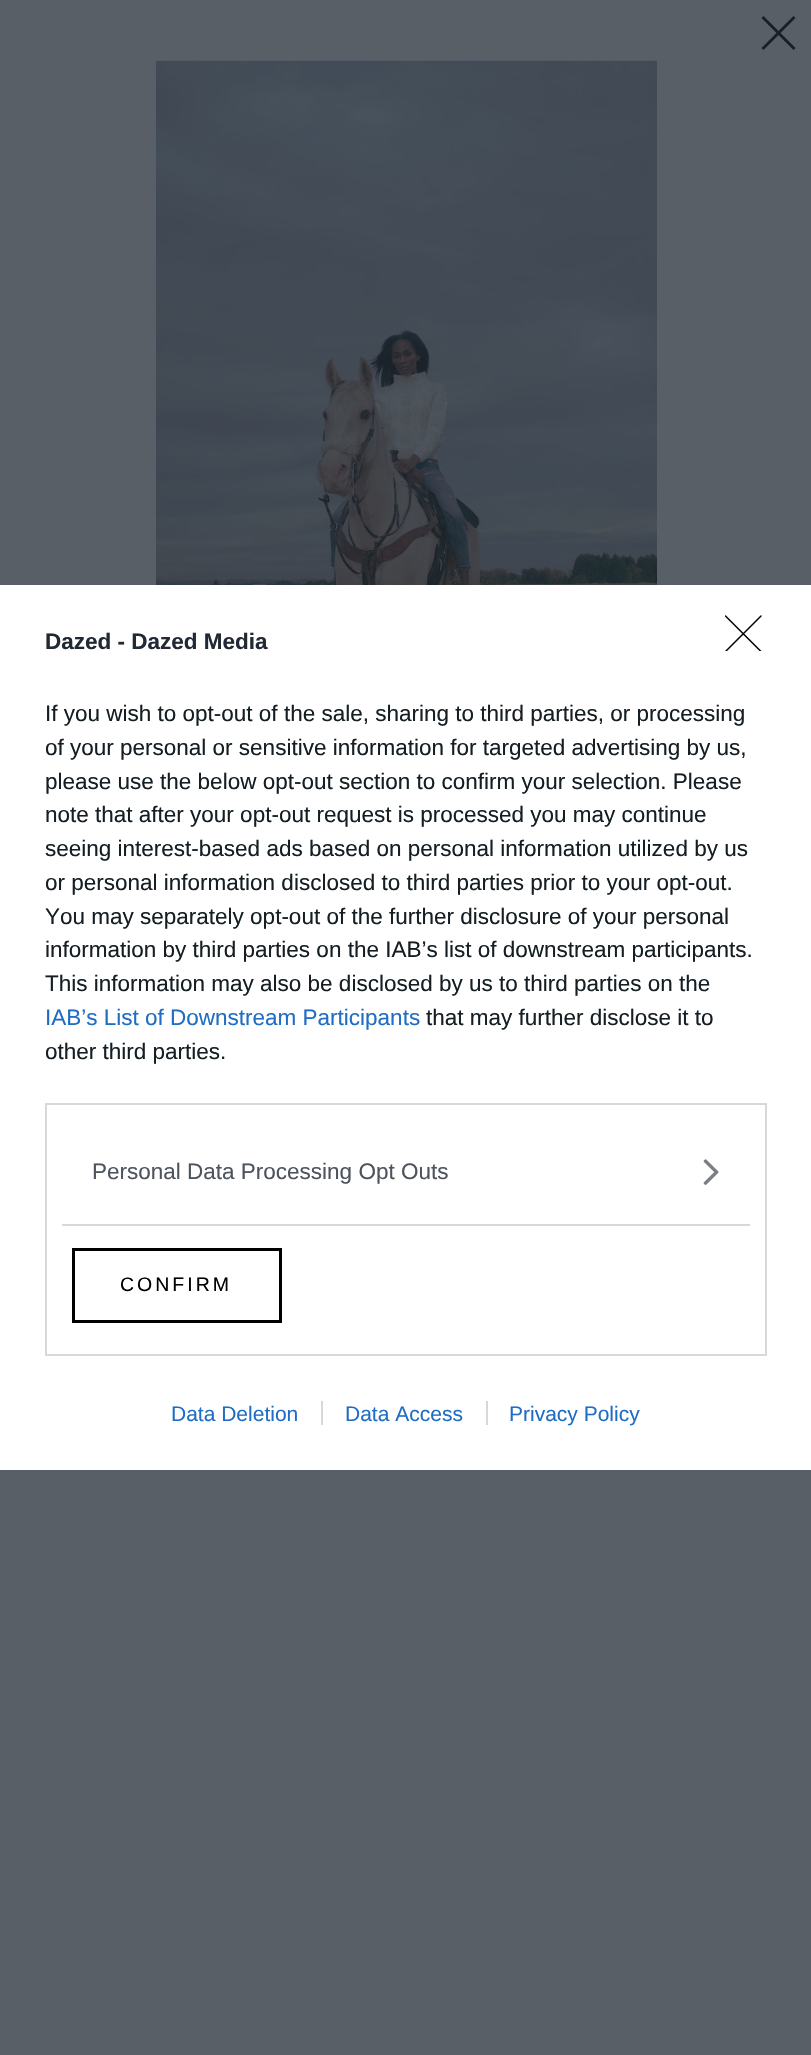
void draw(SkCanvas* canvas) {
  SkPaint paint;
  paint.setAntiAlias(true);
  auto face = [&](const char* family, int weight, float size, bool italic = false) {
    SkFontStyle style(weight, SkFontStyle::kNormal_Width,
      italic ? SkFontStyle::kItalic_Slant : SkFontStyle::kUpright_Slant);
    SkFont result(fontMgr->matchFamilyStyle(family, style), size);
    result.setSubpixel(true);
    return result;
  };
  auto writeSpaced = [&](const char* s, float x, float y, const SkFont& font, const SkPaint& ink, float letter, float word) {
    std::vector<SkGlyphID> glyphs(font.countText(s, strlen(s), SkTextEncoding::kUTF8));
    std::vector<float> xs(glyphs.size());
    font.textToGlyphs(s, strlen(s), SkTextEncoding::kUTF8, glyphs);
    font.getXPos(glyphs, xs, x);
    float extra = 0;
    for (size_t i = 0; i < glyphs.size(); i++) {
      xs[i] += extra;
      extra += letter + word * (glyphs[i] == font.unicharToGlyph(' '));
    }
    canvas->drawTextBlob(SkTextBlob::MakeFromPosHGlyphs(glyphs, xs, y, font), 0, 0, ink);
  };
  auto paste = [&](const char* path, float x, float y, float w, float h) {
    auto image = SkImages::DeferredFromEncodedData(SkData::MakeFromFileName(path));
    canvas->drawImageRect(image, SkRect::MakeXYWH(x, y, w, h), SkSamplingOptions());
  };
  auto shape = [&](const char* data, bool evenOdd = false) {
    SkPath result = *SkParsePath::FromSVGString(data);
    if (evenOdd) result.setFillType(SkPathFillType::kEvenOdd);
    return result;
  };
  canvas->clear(0xff595f67);
  paint.setColor(0xff191f27);
  canvas->drawPath(shape("M793.5 16L795.5 18L763.5 50L761.5 48Z", true), paint);
  canvas->drawPath(shape("M795.5 48L793.5 50L761.5 18L763.5 16Z", true), paint);
  paste("img/1.png", 156, 60, 501, 525);
  paint.setColor(0xffffffff);
  canvas->drawRect(SkRect::MakeXYWH(0, 585, 811, 885), paint);
  canvas->save();
  canvas->clipRect(SkRect::MakeXYWH(725, 615, 37, 36));
  paint.setStroke(true);
  paint.setStrokeWidth(1.5f);
  paint.setStrokeCap(SkPaint::kRound_Cap);
  paint.setStrokeJoin(SkPaint::kRound_Join);
  paint.setColor(0xff000000);
  canvas->drawPath(shape("M725.5 616L761 651.5M761 616L725.5 651.5"), paint);
  canvas->restore();
  paint.setStrokeWidth(2);
  paint.setStrokeCap(SkPaint::kButt_Cap);
  paint.setStrokeJoin(SkPaint::kMiter_Join);
  paint.setColor(0xffd8d8d8);
  canvas->drawRect(SkRect::MakeXYWH(46, 1104, 720, 251), paint);
  paint.setStroke(false);
  canvas->drawRect(SkRect::MakeXYWH(62, 1224, 688, 2), paint);
  paste("img/2.png", 703, 1159, 16, 26);
  paint.setStroke(true);
  paint.setStrokeWidth(3);
  paint.setColor(0xff000000);
  canvas->drawRect(SkRect::MakeXYWH(73.5f, 1249.5f, 207, 72), paint);
  paint.setStroke(false);
  paint.setColor(0xffd8d8d8);
  canvas->drawRect(SkRect::MakeXYWH(321, 1401, 2, 24), paint);
  canvas->drawRect(SkRect::MakeXYWH(486, 1401, 2, 24), paint);
  auto f0 = face("Liberation Sans", 700, 22.5f);
  paint.setColor(0xff212934);
  canvas->drawString("Dazed - Dazed Media", 45, 649, f0, paint);
  auto f1 = face("Liberation Sans", 400, 22.5f);
  paint.setColor(0xff141e23);
  {
    const struct { const char* s; float x, y; } items[] = {
      {"If you wish to opt-out of the sale, sharing to third parties, or processing", 45, 721},
      {"of your personal or sensitive information for targeted advertising by us,", 45, 755},
      {"please use the below opt-out section to confirm your selection. Please", 45, 789},
      {"note that after your opt-out request is processed you may continue", 45, 822},
      {"seeing interest-based ads based on personal information utilized by us", 45, 856},
      {"or personal information disclosed to third parties prior to your opt-out.", 45, 890},
      {"You may separately opt-out of the further disclosure of your personal", 45, 924},
      {"information by third parties on the IAB’s list of downstream participants.", 45, 957},
      {"This information may also be disclosed by us to third parties on the", 45, 991},
    };
    for (auto [s, x, y] : items) {
      canvas->drawString(s, x, y, f1, paint);
    }
  }
  paint.setColor(0xff206dc5);
  canvas->drawString("IAB’s List of Downstream Participants", 45, 1025, f1, paint);
  paint.setColor(0xff141e23);
  canvas->drawString("that may further disclose it to", 426, 1025, f1, paint);
  canvas->drawString("other third parties.", 45, 1059, f1, paint);
  paint.setColor(0xff4d545d);
  canvas->drawString("Personal Data Processing Opt Outs", 92, 1179, f1, paint);
  auto f2 = face("Liberation Sans", 400, 19.5f);
  paint.setColor(0xff000000);
  writeSpaced("CONFIRM", 120, 1291, f2, paint, 3, 0);
  auto f3 = face("Liberation Sans", 400, 21);
  paint.setColor(0xff206dc5);
  {
    const struct { const char* s; float x, y; } items[] = {
      {"Data Deletion", 171, 1421},
      {"Data Access", 345, 1421},
      {"Privacy Policy", 509, 1421},
    };
    for (auto [s, x, y] : items) {
      canvas->drawString(s, x, y, f3, paint);
    }
  }
}
